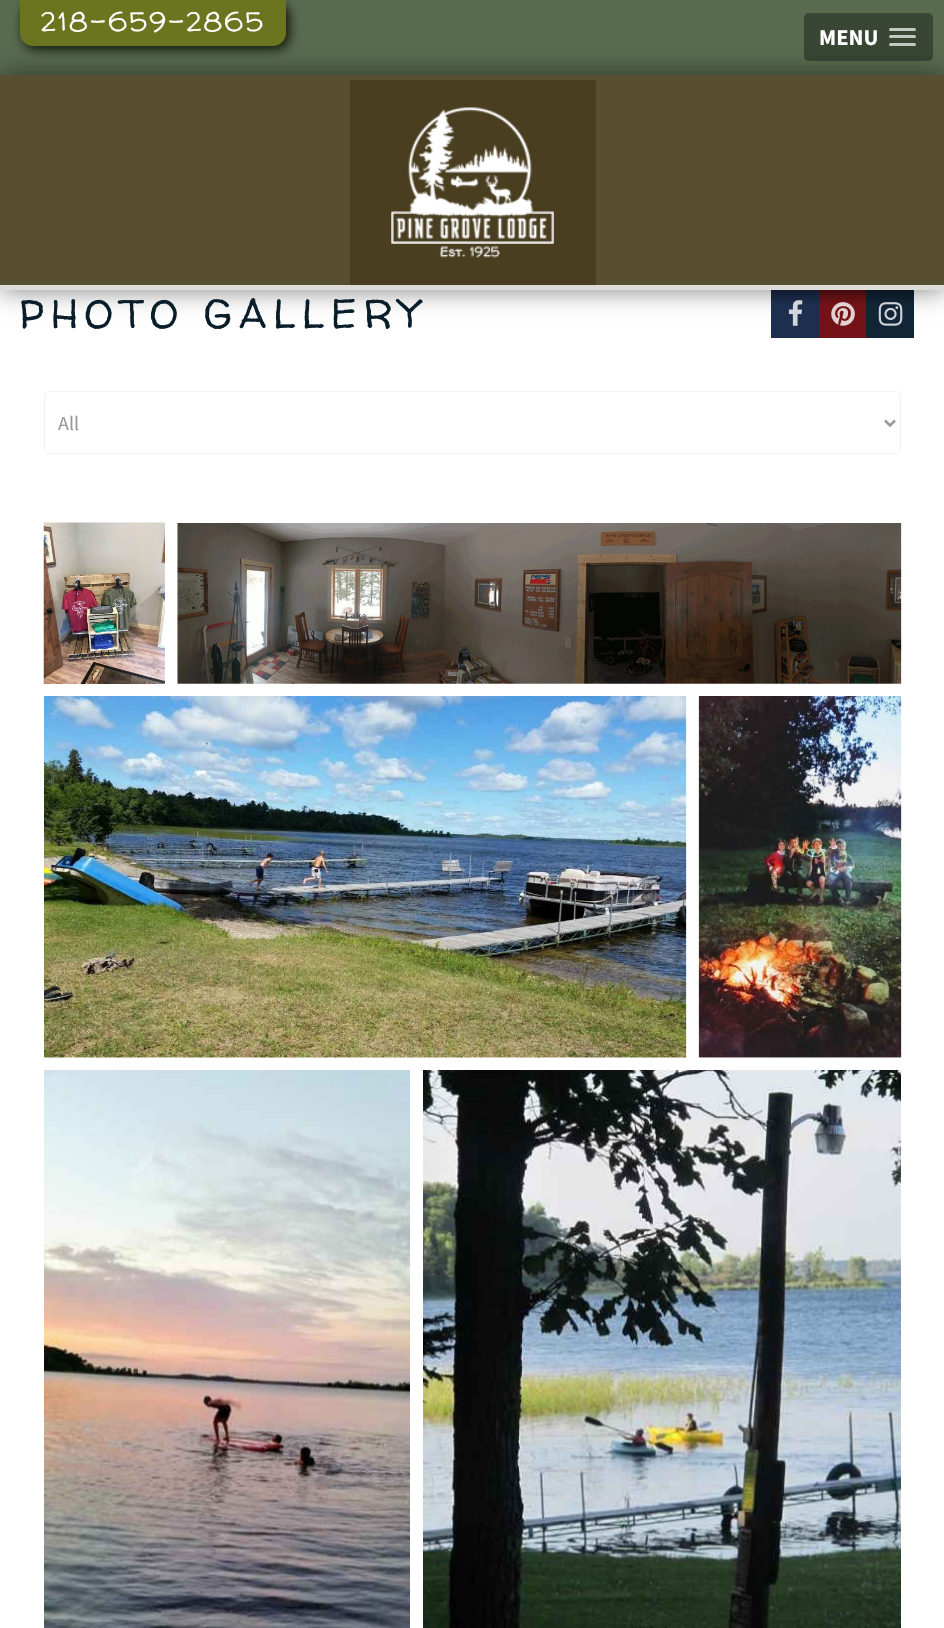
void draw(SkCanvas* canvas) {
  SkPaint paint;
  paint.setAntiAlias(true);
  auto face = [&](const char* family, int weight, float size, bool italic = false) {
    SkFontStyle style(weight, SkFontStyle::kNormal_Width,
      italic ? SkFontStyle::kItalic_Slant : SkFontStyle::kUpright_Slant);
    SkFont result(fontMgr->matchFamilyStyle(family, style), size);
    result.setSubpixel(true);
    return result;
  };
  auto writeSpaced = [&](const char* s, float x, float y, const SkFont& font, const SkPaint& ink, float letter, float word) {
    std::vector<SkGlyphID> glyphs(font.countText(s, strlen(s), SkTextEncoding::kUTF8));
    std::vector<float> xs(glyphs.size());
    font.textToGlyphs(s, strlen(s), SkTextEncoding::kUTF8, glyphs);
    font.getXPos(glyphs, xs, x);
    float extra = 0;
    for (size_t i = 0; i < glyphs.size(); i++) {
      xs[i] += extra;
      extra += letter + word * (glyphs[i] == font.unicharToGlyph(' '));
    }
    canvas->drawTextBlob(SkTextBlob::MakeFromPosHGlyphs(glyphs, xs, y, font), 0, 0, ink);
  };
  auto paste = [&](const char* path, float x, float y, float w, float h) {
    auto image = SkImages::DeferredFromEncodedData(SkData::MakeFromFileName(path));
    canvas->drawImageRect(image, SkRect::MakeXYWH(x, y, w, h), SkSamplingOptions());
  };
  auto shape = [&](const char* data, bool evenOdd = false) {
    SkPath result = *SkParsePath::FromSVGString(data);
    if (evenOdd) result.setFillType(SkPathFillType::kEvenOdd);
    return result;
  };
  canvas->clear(0xffffffff);
  paint.setColor(0xff586b4f);
  canvas->drawRect(SkRect::MakeXYWH(0, 0, 944, 75), paint);
  paint.setColor(0xff394633);
  canvas->drawRoundRect(SkRect::MakeXYWH(804, 13, 129, 48), 5, 5, paint);
  paint.setColor(0xffc4c8c2);
  canvas->drawRoundRect(SkRect::MakeXYWH(889, 35, 27, 3), 1.5f, 1.5f, paint);
  canvas->drawRoundRect(SkRect::MakeXYWH(889, 43, 27, 3), 1.5f, 1.5f, paint);
  paint.setColor(0x80000000);
  paint.setMaskFilter(SkMaskFilter::MakeBlur(kNormal_SkBlurStyle, 12.5f));
  canvas->drawRect(SkRect::MakeXYWH(0, 75, 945, 215), paint);
  paint.setMaskFilter(nullptr);
  paint.setColor(0xff584e30);
  canvas->drawRect(SkRect::MakeXYWH(0, 75, 944, 210), paint);
  paint.setColor(0xffdedcd6);
  canvas->drawRect(SkRect::MakeXYWH(0, 285, 944, 5), paint);
  paint.setColor(0xff0c0d02);
  paint.setMaskFilter(SkMaskFilter::MakeBlur(kNormal_SkBlurStyle, 6));
  canvas->drawRoundRect(SkRect::MakeXYWH(23, 3, 266, 46), 13, 13, paint);
  paint.setMaskFilter(nullptr);
  paint.setColor(0xff6b751f);
  canvas->drawPath(shape("M20 0H286V33C286 40 280 46 273 46H33C26 46 20 40 20 33Z"), paint);
  paint.setColor(0xff4a3e21);
  canvas->drawRect(SkRect::MakeXYWH(350, 80, 246, 205), paint);
  paste("img/1.png", 391, 107, 163, 151);
  {
    const SkColor colors[] = {0xff121c30, 0xff1e2e4f};
    const float stops[] = {0, 0.3f};
    const SkPoint ends[] = {{795, 290}, {795, 338}};
    paint.setShader(SkGradientShader::MakeLinear(ends, colors, stops, 2, SkTileMode::kClamp));
    paint.setAlpha(255);
  }
  canvas->drawRect(SkRect::MakeXYWH(771, 290, 48, 48), paint);
  paste("img/2.png", 788, 300, 15, 26);
  {
    const SkColor colors[] = {0xff450b0d, 0xff731216};
    const float stops[] = {0, 0.3f};
    const SkPoint ends[] = {{843, 290}, {843, 338}};
    paint.setShader(SkGradientShader::MakeLinear(ends, colors, stops, 2, SkTileMode::kClamp));
    paint.setAlpha(255);
  }
  canvas->drawRect(SkRect::MakeXYWH(819, 290, 47, 48), paint);
  paste("img/3.png", 831, 302, 24, 24);
  {
    const SkColor colors[] = {0xff0a1621, 0xff112536};
    const float stops[] = {0, 0.3f};
    const SkPoint ends[] = {{890, 290}, {890, 338}};
    paint.setShader(SkGradientShader::MakeLinear(ends, colors, stops, 2, SkTileMode::kClamp));
    paint.setAlpha(255);
  }
  canvas->drawRect(SkRect::MakeXYWH(866, 290, 48, 48), paint);
  paste("img/4.png", 878, 302, 25, 24);
  paint.setShader(nullptr);
  paint.setColor(0xffc4c8c2);
  canvas->drawRoundRect(SkRect::MakeXYWH(889, 28, 27, 3), 1.5f, 1.5f, paint);
  paint.setStroke(true);
  paint.setStrokeWidth(1);
  paint.setColor(0xfff3f3f3);
  canvas->drawRoundRect(SkRect::MakeXYWH(44.5f, 391.5f, 856, 62), 4.5f, 4.5f, paint);
  paint.setStrokeWidth(2.5f);
  paint.setColor(0xff999999);
  canvas->drawPath(shape("M885 420.5L890 425.5L895 420.5"), paint);
  paste("img/5.png", 43, 522, 122, 162);
  paste("img/6.png", 177, 523, 725, 161);
  paste("img/7.png", 44, 696, 643, 362);
  paste("img/8.png", 698, 696, 204, 362);
  paste("img/9.png", 44, 1070, 366, 558);
  paste("img/10.png", 423, 1070, 478, 558);
  auto f0 = face("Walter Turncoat", 400, 26);
  paint.setStroke(false);
  paint.setColor(0xffffffff);
  writeSpaced("218-659-2865", 41, 31, f0, paint, 2.5f, 0);
  auto f1 = face("Source Sans Pro", 700, 22.5f);
  canvas->drawString("MENU", 819, 45, f1, paint);
  auto f2 = face("Walter Turncoat", 400, 40);
  paint.setColor(0xff091d2a);
  writeSpaced("PHOTO GALLERY", 19, 328, f2, paint, 6.25f, 0);
  auto f3 = face("Source Sans Pro", 400, 20);
  paint.setColor(0xff999999);
  canvas->drawString("All", 58, 430, f3, paint);
}
